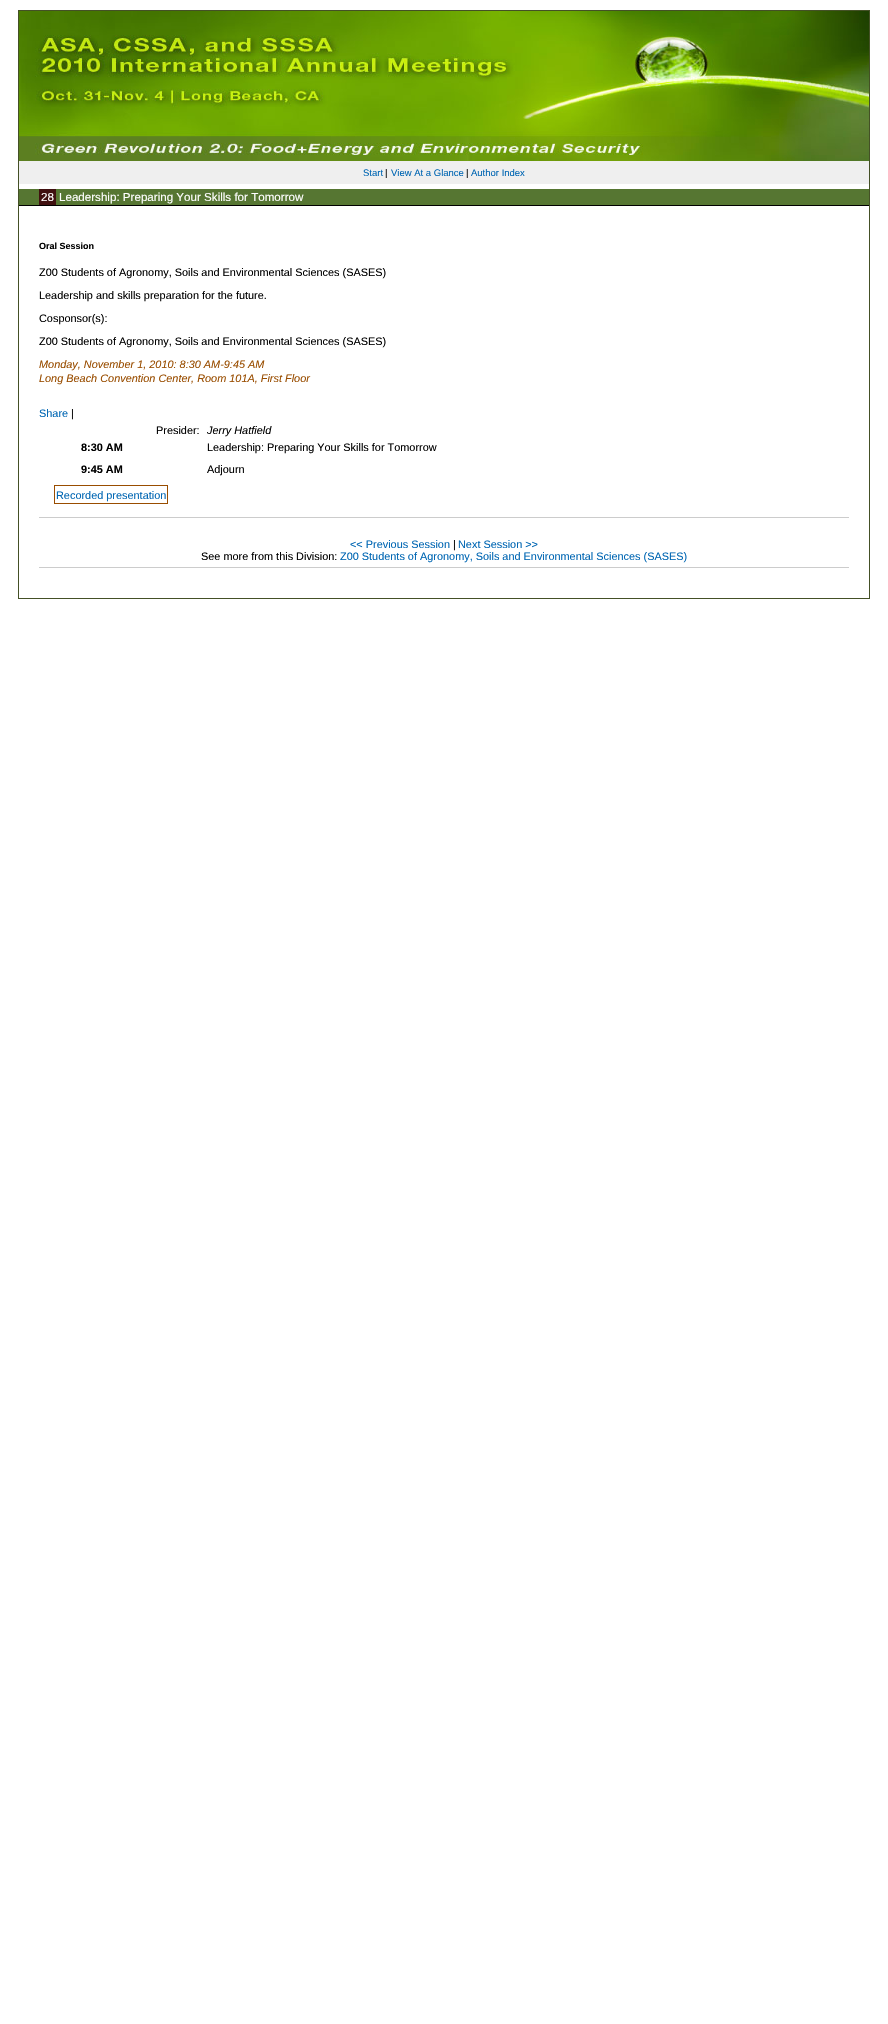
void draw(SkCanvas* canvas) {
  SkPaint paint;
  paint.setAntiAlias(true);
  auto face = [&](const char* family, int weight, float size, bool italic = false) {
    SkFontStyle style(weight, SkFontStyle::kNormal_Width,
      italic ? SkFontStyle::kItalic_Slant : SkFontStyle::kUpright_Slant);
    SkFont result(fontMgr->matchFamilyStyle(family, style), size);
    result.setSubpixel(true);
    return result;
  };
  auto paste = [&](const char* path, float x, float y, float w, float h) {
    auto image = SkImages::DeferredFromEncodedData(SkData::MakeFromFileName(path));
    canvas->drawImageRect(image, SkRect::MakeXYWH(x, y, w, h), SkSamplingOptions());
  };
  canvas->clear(0xffffffff);
  paint.setStroke(true);
  paint.setStrokeWidth(1);
  paint.setColor(0xff445026);
  canvas->drawRect(SkRect::MakeXYWH(18.5f, 10.5f, 851, 588), paint);
  paste("img/1.png", 19, 11, 850, 150);
  paint.setStroke(false);
  {
    const struct { float x, y, w, h; SkColor color; } items[] = {
      {19, 161, 850, 23, 0xffefefef},
      {19, 189, 850, 16, 0xff567632},
      {19, 205, 850, 1, 0xff000000},
      {39, 189, 17, 16, 0xff401010},
    };
    for (auto [x, y, w, h, color] : items) {
      paint.setColor(color);
      canvas->drawRect(SkRect::MakeXYWH(x, y, w, h), paint);
    }
  }
  paint.setStroke(true);
  paint.setColor(0xff994d00);
  canvas->drawRect(SkRect::MakeXYWH(54.5f, 485.5f, 113, 18), paint);
  paint.setStroke(false);
  paint.setColor(0xffcccccc);
  canvas->drawRect(SkRect::MakeXYWH(39, 517, 810, 1), paint);
  canvas->drawRect(SkRect::MakeXYWH(39, 567, 810, 1), paint);
  auto f0 = face("Liberation Sans", 400, 9.5f);
  paint.setColor(0xff0066b3);
  canvas->drawString("Start", 363, 176, f0, paint);
  paint.setColor(0xff000000);
  canvas->drawString("|", 385, 176, f0, paint);
  paint.setColor(0xff0066b3);
  canvas->drawString("View At a Glance", 391, 176, f0, paint);
  paint.setColor(0xff000000);
  canvas->drawString("|", 466, 176, f0, paint);
  paint.setColor(0xff0066b3);
  canvas->drawString("Author Index", 471, 176, f0, paint);
  auto f1 = face("Liberation Sans", 400, 11.6f);
  paint.setColor(0xffffffff);
  canvas->drawString("28", 41, 201, f1, paint);
  canvas->drawString("Leadership: Preparing Your Skills for Tomorrow", 59, 201, f1, paint);
  auto f2 = face("Liberation Sans", 700, 9);
  paint.setColor(0xff000000);
  canvas->drawString("Oral Session", 39, 249, f2, paint);
  auto f3 = face("Liberation Sans", 400, 10.9f);
  {
    const struct { const char* s; float x, y; } items[] = {
      {"Z00 Students of Agronomy, Soils and Environmental Sciences (SASES)", 39, 276},
      {"Leadership and skills preparation for the future.", 39, 299},
      {"Cosponsor(s):", 39, 322},
      {"Z00 Students of Agronomy, Soils and Environmental Sciences (SASES)", 39, 345},
    };
    for (auto [s, x, y] : items) {
      canvas->drawString(s, x, y, f3, paint);
    }
  }
  auto f4 = face("Liberation Sans", 400, 10.9f, true);
  paint.setColor(0xff994d00);
  canvas->drawString("Monday, November 1, 2010: 8:30 AM-9:45 AM", 39, 368, f4, paint);
  canvas->drawString("Long Beach Convention Center, Room 101A, First Floor", 39, 382, f4, paint);
  paint.setColor(0xff0066b3);
  canvas->drawString("Share", 39, 417, f3, paint);
  paint.setColor(0xff000000);
  canvas->drawString("|", 71, 417, f3, paint);
  canvas->drawString("Presider:", 156, 434, f3, paint);
  canvas->drawString("Jerry Hatfield", 207, 434, f4, paint);
  auto f5 = face("Liberation Sans", 700, 10.9f);
  canvas->drawString("8:30 AM", 81, 451, f5, paint);
  canvas->drawString("Leadership: Preparing Your Skills for Tomorrow", 207, 451, f3, paint);
  canvas->drawString("9:45 AM", 81, 473, f5, paint);
  canvas->drawString("Adjourn", 207, 473, f3, paint);
  paint.setColor(0xff0066b3);
  canvas->drawString("Recorded presentation", 56, 499, f3, paint);
  canvas->drawString("<< Previous Session", 350, 548, f3, paint);
  paint.setColor(0xff000000);
  canvas->drawString("|", 453, 548, f3, paint);
  paint.setColor(0xff0066b3);
  canvas->drawString("Next Session >>", 458, 548, f3, paint);
  paint.setColor(0xff000000);
  canvas->drawString("See more from this Division:", 201, 560, f3, paint);
  paint.setColor(0xff0066b3);
  canvas->drawString("Z00 Students of Agronomy, Soils and Environmental Sciences (SASES)", 340, 560, f3, paint);
}
